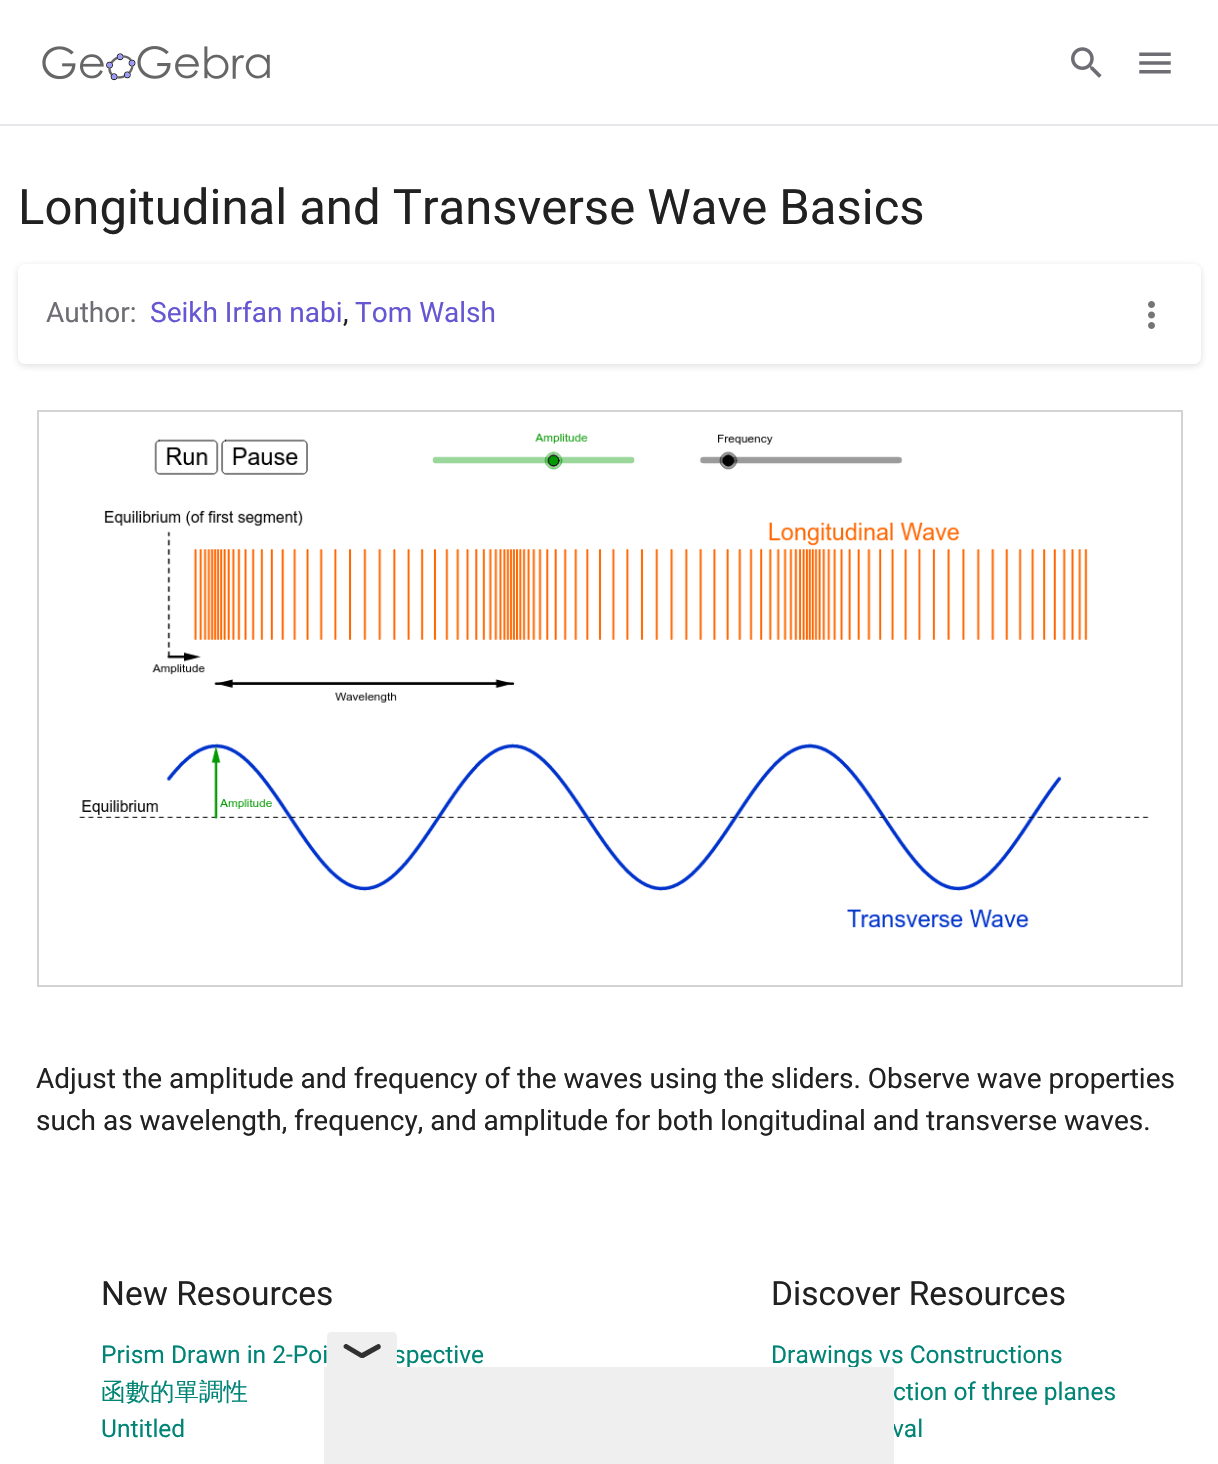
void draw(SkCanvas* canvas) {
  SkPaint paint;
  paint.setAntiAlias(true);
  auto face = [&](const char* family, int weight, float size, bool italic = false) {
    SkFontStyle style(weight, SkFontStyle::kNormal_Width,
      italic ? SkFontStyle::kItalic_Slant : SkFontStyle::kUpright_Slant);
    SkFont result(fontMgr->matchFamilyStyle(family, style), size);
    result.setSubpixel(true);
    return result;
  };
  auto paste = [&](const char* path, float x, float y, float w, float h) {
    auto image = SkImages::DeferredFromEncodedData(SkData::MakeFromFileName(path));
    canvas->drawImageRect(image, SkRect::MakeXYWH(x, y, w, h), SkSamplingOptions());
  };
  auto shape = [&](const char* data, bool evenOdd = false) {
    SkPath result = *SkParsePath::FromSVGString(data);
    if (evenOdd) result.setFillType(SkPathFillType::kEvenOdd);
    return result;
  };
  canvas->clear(0xffffffff);
  paint.setColor(0xffe6e6eb);
  canvas->drawRect(SkRect::MakeXYWH(0, 124, 1218, 2), paint);
  paste("img/1.png", 42, 46, 228, 35);
  paste("img/2.png", 1071, 47, 31, 31);
  paste("img/3.png", 1139, 52, 32, 22);
  paint.setColor(0x241c1c1f);
  paint.setMaskFilter(SkMaskFilter::MakeBlur(kNormal_SkBlurStyle, 3.5f));
  canvas->drawRoundRect(SkRect::MakeXYWH(18, 266, 1183, 100), 7, 7, paint);
  paint.setMaskFilter(nullptr);
  paint.setColor(0xffffffff);
  canvas->drawRoundRect(SkRect::MakeXYWH(18, 264, 1183, 100), 7, 7, paint);
  paste("img/4.png", 1148, 301, 7, 28);
  paste("img/5.png", 79, 433, 1070, 495);
  paint.setStroke(true);
  paint.setStrokeWidth(2);
  paint.setColor(0xffd3d3d3);
  canvas->drawRect(SkRect::MakeXYWH(38, 411, 1144, 575), paint);
  auto f0 = face("Roboto", 400, 49);
  paint.setStroke(false);
  paint.setColor(0xff212121);
  canvas->drawString("Longitudinal and Transverse Wave Basics", 18, 224, f0, paint);
  auto f1 = face("Roboto", 400, 28);
  paint.setColor(0xff6e6d73);
  canvas->drawString("Author:", 46, 322, f1, paint);
  paint.setColor(0xff6557d2);
  canvas->drawString("Seikh Irfan nabi", 150, 322, f1, paint);
  paint.setColor(0xff212121);
  canvas->drawString(",", 343, 322, f1, paint);
  paint.setColor(0xff6557d2);
  canvas->drawString("Tom Walsh", 355, 322, f1, paint);
  paint.setColor(0xff212121);
  canvas->drawString("Adjust the amplitude and frequency of the waves using the sliders. Observe wave properties", 36, 1088, f1, paint);
  canvas->drawString("such as wavelength, frequency, and amplitude for both longitudinal and transverse waves.", 36, 1130, f1, paint);
  auto f2 = face("Roboto", 400, 33.5f);
  canvas->drawString("New Resources", 101, 1305, f2, paint);
  auto f3 = face("Roboto", 400, 24.5f);
  paint.setColor(0xff008475);
  canvas->drawString("Prism Drawn in 2-Poi", 101, 1363, f3, paint);
  canvas->drawString("spective", 393, 1363, f3, paint);
  auto f4 = face("WenQuanYi Zen Hei", 500, 24.5f);
  canvas->drawString("函數的單調性", 101, 1400, f4, paint);
  canvas->drawString("Untitled", 101, 1437, f3, paint);
  paint.setColor(0xff212121);
  canvas->drawString("Discover Resources", 771, 1305, f2, paint);
  paint.setColor(0xff008475);
  {
    const struct { const char* s; float x, y; } items[] = {
      {"Drawings vs Constructions", 771, 1363},
      {"ction of three planes", 893, 1400},
      {"val", 892, 1437},
    };
    for (auto [s, x, y] : items) {
      canvas->drawString(s, x, y, f3, paint);
    }
  }
  paint.setColor(0xffefefef);
  canvas->drawPath(shape("M331 1332H393C395 1332 397 1334 397 1336V1367H327V1336C327 1334 329 1332 331 1332Z"), paint);
  paint.setColor(0xff313131);
  canvas->drawPath(shape("M347.5 1344.5L363.5 1354C365.5 1356 362.5 1359 360 1357.5L344 1348C342.5 1346 345 1343 347.5 1344.5Z"), paint);
  canvas->drawPath(shape("M361.5 1353L378 1344C380.5 1343.5 382 1347.5 379.5 1349L363.5 1358C360.5 1358.5 359.5 1354.5 361.5 1353Z"), paint);
  paint.setColor(0xffefefef);
  canvas->drawRect(SkRect::MakeXYWH(324, 1367, 570, 97), paint);
}
